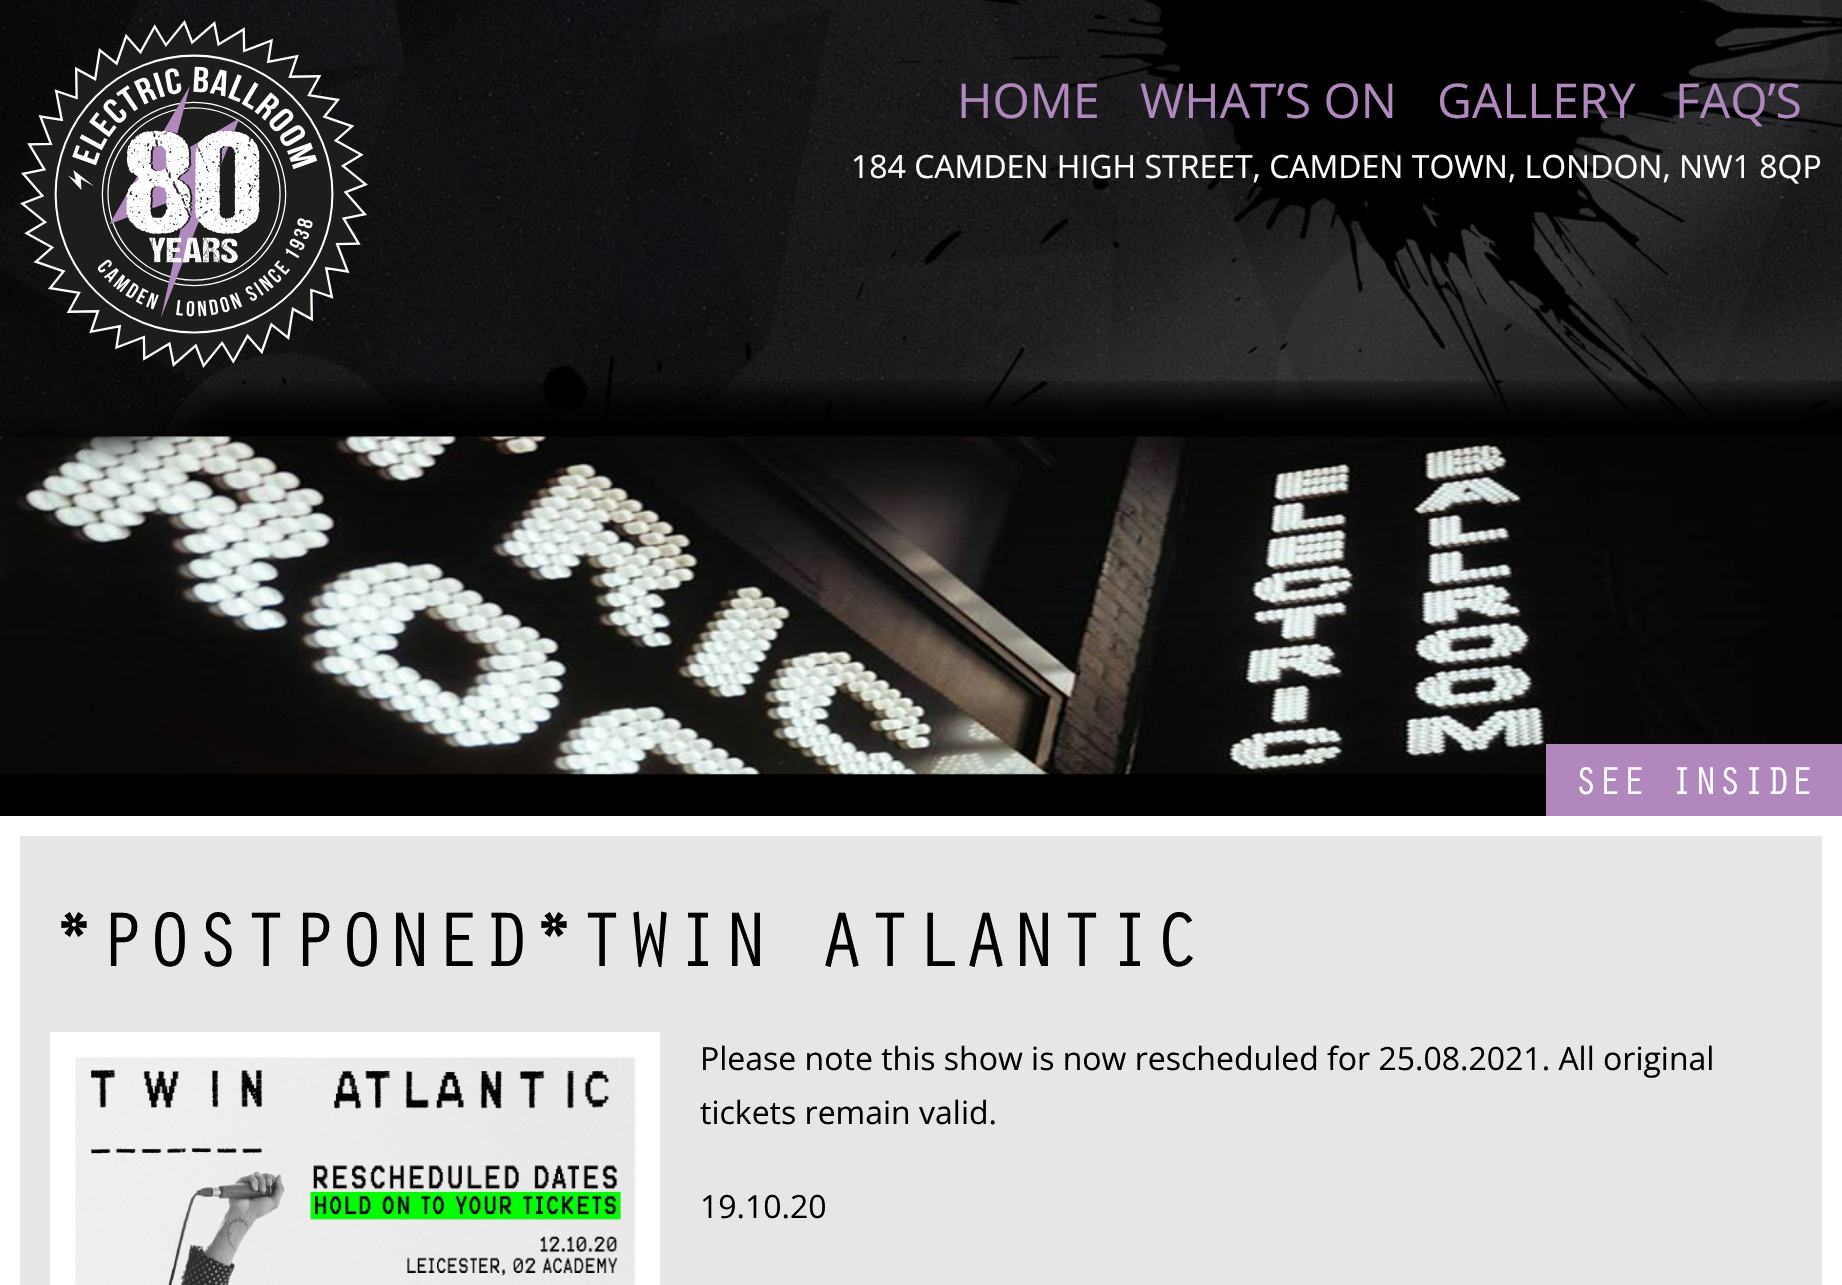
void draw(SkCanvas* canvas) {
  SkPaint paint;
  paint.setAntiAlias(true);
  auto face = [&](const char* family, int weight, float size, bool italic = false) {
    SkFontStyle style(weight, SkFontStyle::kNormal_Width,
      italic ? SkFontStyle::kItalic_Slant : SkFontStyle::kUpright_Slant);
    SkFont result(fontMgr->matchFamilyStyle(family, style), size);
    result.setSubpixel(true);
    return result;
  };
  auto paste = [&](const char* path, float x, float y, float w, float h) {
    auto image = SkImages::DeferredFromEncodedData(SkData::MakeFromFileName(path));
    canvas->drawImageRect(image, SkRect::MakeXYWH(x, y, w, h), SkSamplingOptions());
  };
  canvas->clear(0xffffffff);
  paste("img/1.png", 0, 0, 1842, 542);
  paste("img/2.png", 20, 20, 348, 348);
  paste("img/3.png", 0, 380, 1842, 436);
  paint.setColor(0xffb088be);
  canvas->drawRect(SkRect::MakeXYWH(1546, 744, 296, 72), paint);
  paint.setColor(0xffe6e6e6);
  canvas->drawRect(SkRect::MakeXYWH(20, 836, 1802, 449), paint);
  paste("img/4.png", 50, 1032, 610, 253);
  auto f0 = face("Open Sans", 400, 48);
  paint.setColor(0xffb088be);
  {
    const struct { const char* s; float x, y; } items[] = {
      {"HOME", 957, 118},
      {"WHAT’S ON", 1140, 118},
      {"GALLERY", 1437, 118},
      {"FAQ’S", 1675, 118},
    };
    for (auto [s, x, y] : items) {
      canvas->drawString(s, x, y, f0, paint);
    }
  }
  auto f1 = face("Open Sans", 400, 32);
  paint.setColor(0xffffffff);
  canvas->drawString("184 CAMDEN HIGH STREET, CAMDEN TOWN, LONDON, NW1 8QP", 851, 178, f1, paint);
  auto f2 = face("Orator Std", 400, 40);
  canvas->drawString("SEE INSIDE", 1574, 794, f2, paint);
  auto f3 = face("Orator Std", 400, 80);
  paint.setColor(0xff000000);
  canvas->drawString("*POSTPONED*TWIN ATLANTIC", 50, 966, f3, paint);
  {
    const struct { const char* s; float x, y; } items[] = {
      {"Please note this show is now rescheduled for 25.08.2021. All original", 700, 1070},
      {"tickets remain valid.", 700, 1124},
      {"19.10.20", 700, 1218},
    };
    for (auto [s, x, y] : items) {
      canvas->drawString(s, x, y, f1, paint);
    }
  }
}
